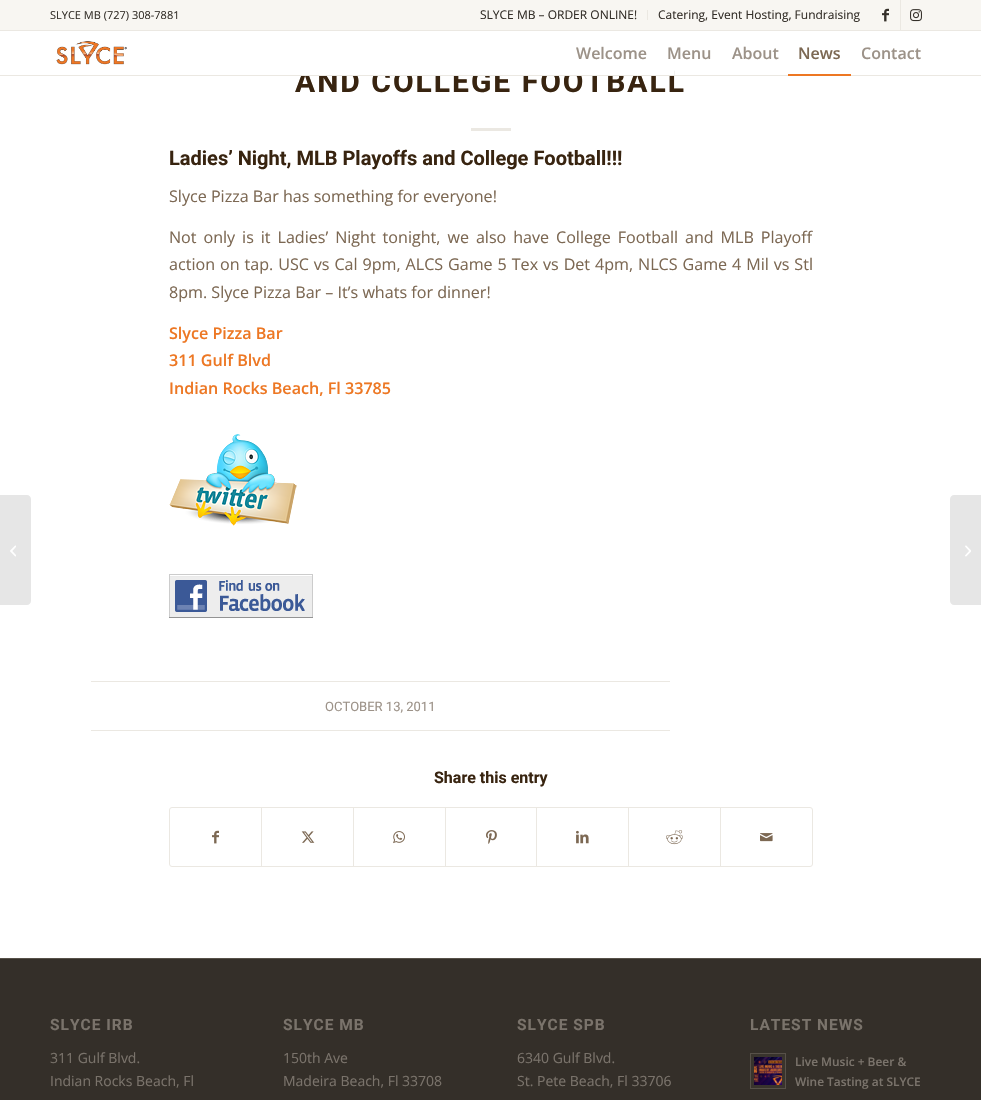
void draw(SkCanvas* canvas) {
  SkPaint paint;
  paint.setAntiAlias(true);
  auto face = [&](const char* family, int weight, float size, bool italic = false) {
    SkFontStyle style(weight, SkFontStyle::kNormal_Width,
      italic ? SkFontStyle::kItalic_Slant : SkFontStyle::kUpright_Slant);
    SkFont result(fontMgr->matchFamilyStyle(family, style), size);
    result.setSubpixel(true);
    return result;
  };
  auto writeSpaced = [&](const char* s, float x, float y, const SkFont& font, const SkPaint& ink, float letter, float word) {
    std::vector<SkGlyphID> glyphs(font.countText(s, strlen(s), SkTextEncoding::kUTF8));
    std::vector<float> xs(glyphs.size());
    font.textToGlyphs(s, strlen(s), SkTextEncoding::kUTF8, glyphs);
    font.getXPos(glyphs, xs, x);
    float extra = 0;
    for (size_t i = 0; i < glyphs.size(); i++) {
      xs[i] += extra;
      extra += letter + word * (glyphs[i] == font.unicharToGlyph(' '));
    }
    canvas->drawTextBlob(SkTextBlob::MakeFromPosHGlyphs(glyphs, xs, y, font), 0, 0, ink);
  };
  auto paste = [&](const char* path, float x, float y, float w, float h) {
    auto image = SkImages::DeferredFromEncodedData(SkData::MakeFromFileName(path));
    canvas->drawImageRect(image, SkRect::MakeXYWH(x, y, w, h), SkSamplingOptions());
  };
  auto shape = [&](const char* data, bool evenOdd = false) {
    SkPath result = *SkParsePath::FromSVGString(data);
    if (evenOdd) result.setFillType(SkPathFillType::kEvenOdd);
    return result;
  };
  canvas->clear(0xffffffff);
  {
    const struct { float x, y, w, h; SkColor color; } items[] = {
      {0, 0, 981, 30, 0xfff8f6f2},
      {0, 30, 981, 1, 0xffebe8e2},
      {647, 10, 1, 10, 0xffebe8e2},
      {900, 0, 1, 30, 0xffebe8e2},
    };
    for (auto [x, y, w, h, color] : items) {
      paint.setColor(color);
      canvas->drawRect(SkRect::MakeXYWH(x, y, w, h), paint);
    }
  }
  paste("img/1.png", 882, 8, 7, 14);
  paste("img/2.png", 910, 9, 12, 13);
  paste("img/3.png", 56, 41, 71, 24);
  paint.setColor(0xffe6e6e6);
  canvas->drawPath(shape("M0 495H27C29 495 31 497 31 499V601C31 603 29 605 27 605H0Z"), paint);
  paste("img/4.png", 10, 545, 6, 12);
  paint.setColor(0xffebe8e2);
  canvas->drawRect(SkRect::MakeXYWH(471, 128, 40, 3), paint);
  paste("img/5.png", 169, 434, 128, 92);
  paste("img/6.png", 169, 574, 144, 44);
  canvas->drawRect(SkRect::MakeXYWH(91, 681, 579, 1), paint);
  canvas->drawRect(SkRect::MakeXYWH(91, 730, 579, 1), paint);
  paint.setStroke(true);
  paint.setStrokeWidth(1);
  canvas->drawRoundRect(SkRect::MakeXYWH(169.5f, 807.5f, 643, 59), 2.5f, 2.5f, paint);
  paste("img/7.png", 212, 830, 7, 14);
  paint.setStroke(false);
  canvas->drawRect(SkRect::MakeXYWH(261, 808, 1, 58), paint);
  paste("img/8.png", 301, 831, 14, 12);
  canvas->drawRect(SkRect::MakeXYWH(353, 808, 1, 58), paint);
  paste("img/9.png", 393, 831, 12, 13);
  canvas->drawRect(SkRect::MakeXYWH(445, 808, 1, 58), paint);
  paste("img/10.png", 486, 830, 11, 14);
  canvas->drawRect(SkRect::MakeXYWH(536, 808, 1, 58), paint);
  paste("img/11.png", 576, 830, 13, 14);
  canvas->drawRect(SkRect::MakeXYWH(628, 808, 1, 58), paint);
  paste("img/12.png", 666, 830, 17, 15);
  canvas->drawRect(SkRect::MakeXYWH(720, 808, 1, 58), paint);
  paste("img/13.png", 760, 833, 13, 9);
  paint.setColor(0xff342f29);
  canvas->drawRect(SkRect::MakeXYWH(0, 959, 981, 141), paint);
  paint.setColor(0xff575149);
  canvas->drawRect(SkRect::MakeXYWH(0, 958, 981, 1), paint);
  paint.setColor(0xff39342d);
  canvas->drawRect(SkRect::MakeXYWH(750.5f, 1053.5f, 35, 35), paint);
  paint.setStroke(true);
  paint.setColor(0xff575149);
  canvas->drawRect(SkRect::MakeXYWH(750.5f, 1053.5f, 35, 35), paint);
  paste("img/14.png", 754, 1057, 28, 28);
  paint.setStroke(false);
  paint.setColor(0xffe6e6e6);
  canvas->drawPath(shape("M954 495H981V605H954C952 605 950 603 950 601V499C950 497 952 495 954 495Z"), paint);
  paste("img/15.png", 965, 545, 6, 12);
  auto f0 = face("Open Sans", 400, 11);
  paint.setColor(0xff342f29);
  canvas->drawString("SLYCE MB (727) 308-7881", 50, 19, f0, paint);
  auto f1 = face("Open Sans", 400, 12);
  canvas->drawString("SLYCE MB – ORDER ONLINE!", 480, 19, f1, paint);
  canvas->drawString("Catering, Event Hosting, Fundraising", 658, 19, f1, paint);
  auto f2 = face("Open Sans", 600, 16);
  paint.setColor(0xff9c9288);
  {
    const struct { const char* s; float x, y; } items[] = {
      {"Welcome", 576, 59},
      {"Menu", 667, 59},
      {"About", 732, 59},
    };
    for (auto [s, x, y] : items) {
      canvas->drawString(s, x, y, f2, paint);
    }
  }
  paint.setColor(0xff7c6853);
  canvas->drawString("News", 798, 59, f2, paint);
  paint.setColor(0xff9c9288);
  canvas->drawString("Contact", 861, 59, f2, paint);
  auto f3 = face("Roboto", 700, 30);
  paint.setColor(0xff382410);
  writeSpaced("AND COLLEGE FOOTBALL", 295, 92, f3, paint, 2, 0);
  {
    const struct { float x, y, w, h; SkColor color; } items[] = {
      {0, 75, 981, 1, 0xffebe8e2},
      {788, 74, 63, 2, 0xffed7723},
      {301, 70, 373, 5, 0xffffffff},
    };
    for (auto [x, y, w, h, color] : items) {
      paint.setColor(color);
      canvas->drawRect(SkRect::MakeXYWH(x, y, w, h), paint);
    }
  }
  auto f4 = face("Roboto", 700, 20);
  paint.setColor(0xff382410);
  canvas->drawString("Ladies’ Night, MLB Playoffs and College Football!!!", 169, 165, f4, paint);
  auto f5 = face("Open Sans", 400, 16.1f);
  paint.setColor(0xff7c6853);
  canvas->drawString("Slyce Pizza Bar has something for everyone!", 169, 202, f5, paint);
  writeSpaced("Not only is it Ladies’ Night tonight, we also have College Football and MLB Playoff", 169, 243, f5, paint, 0, 2.75f);
  writeSpaced("action on tap. USC vs Cal 9pm, ALCS Game 5 Tex vs Det 4pm, NLCS Game 4 Mil vs Stl", 169, 270, f5, paint, 0, 0.75f);
  canvas->drawString("8pm. Slyce Pizza Bar – It’s whats for dinner!", 169, 298, f5, paint);
  auto f6 = face("Open Sans", 600, 16.1f);
  paint.setColor(0xffed7723);
  {
    const struct { const char* s; float x, y; } items[] = {
      {"Slyce Pizza Bar", 169, 339},
      {"311 Gulf Blvd", 169, 366},
      {"Indian Rocks Beach, Fl 33785", 169, 394},
    };
    for (auto [s, x, y] : items) {
      canvas->drawString(s, x, y, f6, paint);
    }
  }
  auto f7 = face("Roboto", 400, 13);
  paint.setColor(0xff9c9288);
  canvas->drawString("OCTOBER 13, 2011", 325, 711, f7, paint);
  auto f8 = face("Roboto", 700, 16);
  paint.setColor(0xff382410);
  canvas->drawString("Share this entry", 434, 783, f8, paint);
  auto f9 = face("Roboto", 700, 15.5f);
  paint.setColor(0xff7a736b);
  writeSpaced("SLYCE IRB", 50, 1030, f9, paint, 1, 0);
  auto f10 = face("Open Sans", 400, 14);
  canvas->drawString("311 Gulf Blvd.", 50, 1063, f10, paint);
  canvas->drawString("Indian Rocks Beach, Fl", 50, 1086, f10, paint);
  writeSpaced("SLYCE MB", 283, 1030, f9, paint, 1, 0);
  canvas->drawString("150th Ave", 283, 1063, f10, paint);
  canvas->drawString("Madeira Beach, Fl 33708", 283, 1086, f10, paint);
  writeSpaced("SLYCE SPB", 517, 1030, f9, paint, 1, 0);
  canvas->drawString("6340 Gulf Blvd.", 517, 1063, f10, paint);
  canvas->drawString("St. Pete Beach, Fl 33706", 517, 1086, f10, paint);
  writeSpaced("LATEST NEWS", 750, 1030, f9, paint, 1, 0);
  auto f11 = face("Open Sans", 600, 11.9f);
  canvas->drawString("Live Music + Beer &", 795, 1066, f11, paint);
  canvas->drawString("Wine Tasting at SLYCE", 795, 1086, f11, paint);
}
